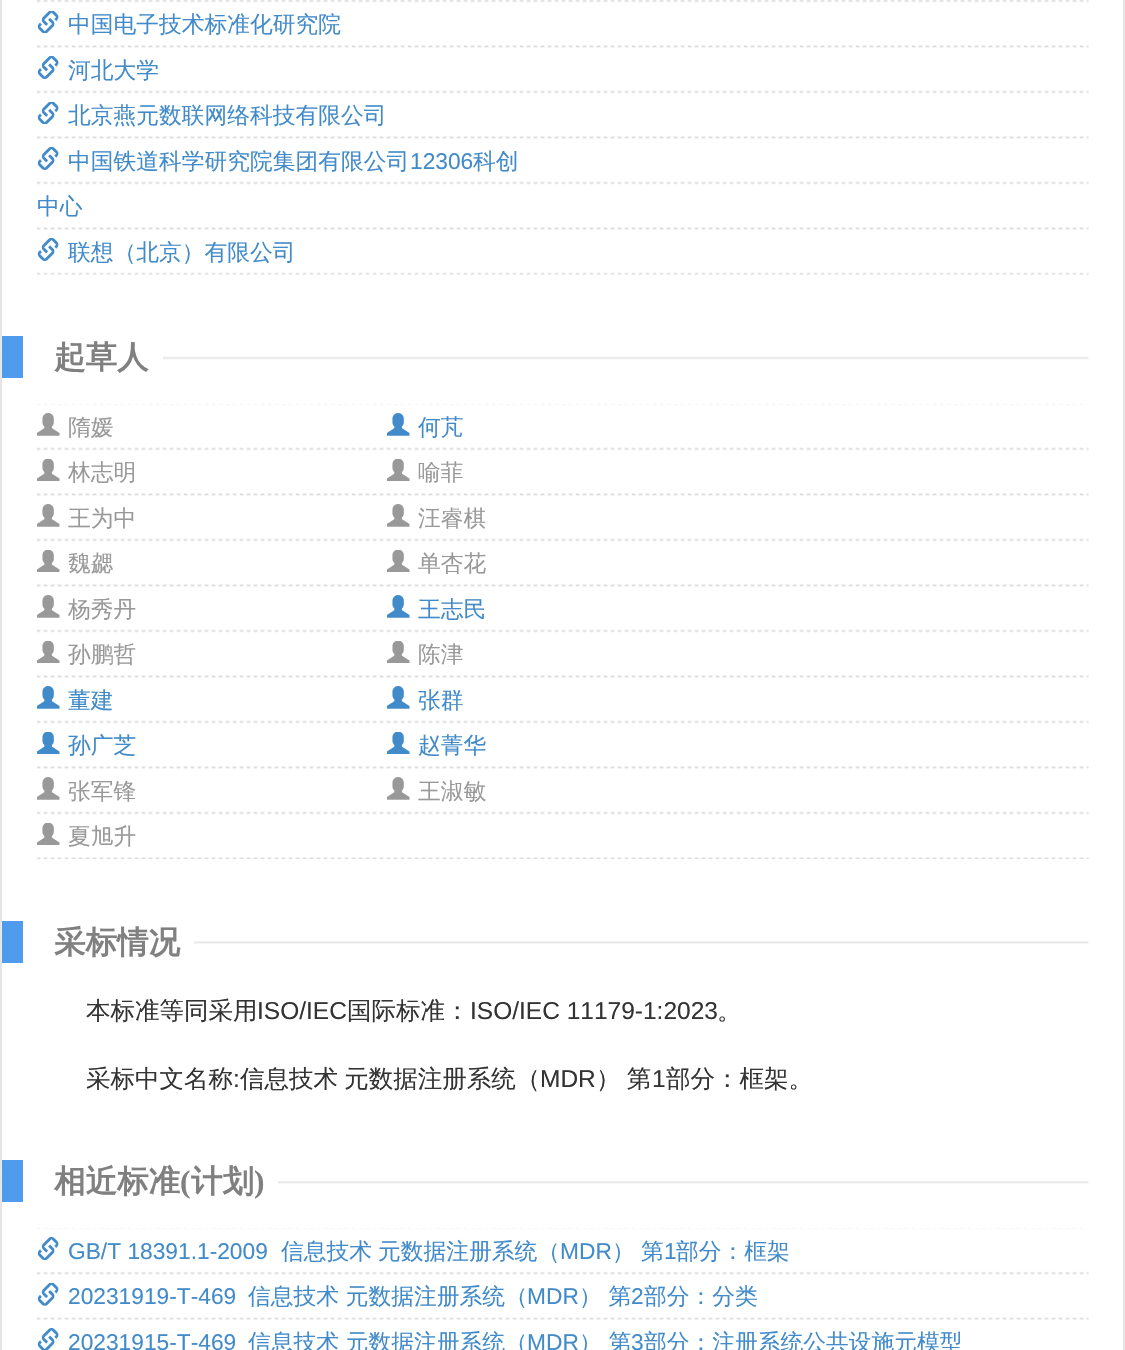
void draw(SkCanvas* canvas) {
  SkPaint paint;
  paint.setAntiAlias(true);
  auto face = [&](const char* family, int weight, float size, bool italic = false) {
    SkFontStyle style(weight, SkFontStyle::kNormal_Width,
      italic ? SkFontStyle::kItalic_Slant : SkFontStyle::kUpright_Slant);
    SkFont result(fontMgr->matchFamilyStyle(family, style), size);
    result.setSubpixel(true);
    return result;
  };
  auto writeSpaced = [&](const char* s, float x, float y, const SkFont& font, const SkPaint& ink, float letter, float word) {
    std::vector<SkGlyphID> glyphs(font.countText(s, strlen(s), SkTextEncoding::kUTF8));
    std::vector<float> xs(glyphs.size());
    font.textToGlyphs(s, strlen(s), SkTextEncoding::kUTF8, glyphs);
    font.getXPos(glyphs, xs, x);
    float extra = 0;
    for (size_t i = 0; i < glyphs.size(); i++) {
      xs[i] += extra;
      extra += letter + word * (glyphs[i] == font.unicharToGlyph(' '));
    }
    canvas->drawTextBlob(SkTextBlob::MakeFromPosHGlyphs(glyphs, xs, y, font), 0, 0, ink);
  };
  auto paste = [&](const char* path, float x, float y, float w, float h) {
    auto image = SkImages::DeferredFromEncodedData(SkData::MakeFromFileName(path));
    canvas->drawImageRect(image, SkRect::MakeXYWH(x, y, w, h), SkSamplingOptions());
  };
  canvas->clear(0xffffffff);
  paint.setStroke(true);
  paint.setStrokeWidth(2);
  paint.setColor(0xffe5e5e5);
  canvas->drawRect(SkRect::MakeXYWH(1, -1, 1123, 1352), paint);
  paste("img/1.png", 37, 0, 1052, 275);
  paste("img/2.png", 37, 11, 22, 22);
  paste("img/3.png", 37, 56, 22, 23);
  paste("img/2.png", 37, 102, 22, 22);
  paste("img/3.png", 37, 147, 22, 23);
  paste("img/3.png", 37, 238, 22, 23);
  paste("img/4.png", 1, 336, 1088, 42);
  paint.setStroke(false);
  paint.setColor(0xff4f9cee);
  canvas->drawRect(SkRect::MakeXYWH(2, 336, 21, 42), paint);
  paint.setColor(0xffffffff);
  canvas->drawRect(SkRect::MakeXYWH(23, 356, 140, 4), paint);
  paste("img/5.png", 37, 404, 1052, 456);
  paste("img/6.png", 37, 413, 23, 23);
  paste("img/7.png", 387, 413, 23, 23);
  paste("img/8.png", 37, 459, 23, 22);
  paste("img/8.png", 387, 459, 23, 22);
  paste("img/6.png", 37, 504, 23, 23);
  paste("img/6.png", 387, 504, 23, 23);
  paste("img/8.png", 37, 550, 23, 22);
  paste("img/8.png", 387, 550, 23, 22);
  paste("img/6.png", 37, 595, 23, 23);
  paste("img/7.png", 387, 595, 23, 23);
  paste("img/8.png", 37, 641, 23, 22);
  paste("img/8.png", 387, 641, 23, 22);
  paste("img/7.png", 37, 686, 23, 23);
  paste("img/7.png", 387, 686, 23, 23);
  paste("img/9.png", 37, 732, 23, 22);
  paste("img/9.png", 387, 732, 23, 22);
  paste("img/6.png", 37, 777, 23, 23);
  paste("img/6.png", 387, 777, 23, 23);
  paste("img/8.png", 37, 823, 23, 22);
  paste("img/10.png", 1, 921, 1088, 41);
  paint.setColor(0xff4f9cee);
  canvas->drawRect(SkRect::MakeXYWH(2, 921, 21, 42), paint);
  paint.setColor(0xffffffff);
  canvas->drawRect(SkRect::MakeXYWH(23, 941, 171, 3), paint);
  paste("img/11.png", 1, 1160, 1088, 42);
  paint.setColor(0xff4f9cee);
  canvas->drawRect(SkRect::MakeXYWH(2, 1160, 21, 42), paint);
  paint.setColor(0xffffffff);
  canvas->drawRect(SkRect::MakeXYWH(23, 1181, 255, 3), paint);
  paste("img/12.png", 37, 1228, 1052, 92);
  paste("img/13.png", 37, 1237, 22, 23);
  paste("img/14.png", 37, 1283, 22, 23);
  paste("img/15.png", 37, 1328, 22, 22);
  auto f0 = face("WenQuanYi Zen Hei", 500, 22.75f);
  paint.setColor(0xff428bca);
  {
    const struct { const char* s; float x, y; } items[] = {
      {"中国电子技术标准化研究院", 68, 32},
      {"河北大学", 68, 78},
      {"北京燕元数联网络科技有限公司", 68, 123},
      {"中国铁道科学研究院集团有限公司", 68, 169},
    };
    for (auto [s, x, y] : items) {
      canvas->drawString(s, x, y, f0, paint);
    }
  }
  auto f1 = face("Liberation Sans", 400, 22.75f);
  canvas->drawString("12306", 410, 169, f1, paint);
  {
    const struct { const char* s; float x, y; } items[] = {
      {"科创", 473, 169},
      {"中心", 37, 214},
      {"联想（北京）有限公司", 68, 260},
    };
    for (auto [s, x, y] : items) {
      canvas->drawString(s, x, y, f0, paint);
    }
  }
  auto f2 = face("WenQuanYi Zen Hei", 700, 31.5f);
  paint.setColor(0xff808080);
  canvas->drawString("起草人", 54, 368, f2, paint);
  paint.setColor(0xff999999);
  canvas->drawString("隋媛", 68, 435, f0, paint);
  paint.setColor(0xff428bca);
  canvas->drawString("何芃", 418, 435, f0, paint);
  paint.setColor(0xff999999);
  {
    const struct { const char* s; float x, y; } items[] = {
      {"林志明", 68, 480},
      {"喻菲", 418, 480},
      {"王为中", 68, 526},
      {"汪睿棋", 418, 526},
      {"魏勰", 68, 571},
      {"单杏花", 418, 571},
      {"杨秀丹", 68, 617},
    };
    for (auto [s, x, y] : items) {
      canvas->drawString(s, x, y, f0, paint);
    }
  }
  paint.setColor(0xff428bca);
  canvas->drawString("王志民", 418, 617, f0, paint);
  paint.setColor(0xff999999);
  canvas->drawString("孙鹏哲", 68, 662, f0, paint);
  canvas->drawString("陈津", 418, 662, f0, paint);
  paint.setColor(0xff428bca);
  {
    const struct { const char* s; float x, y; } items[] = {
      {"董建", 68, 708},
      {"张群", 418, 708},
      {"孙广芝", 68, 753},
      {"赵菁华", 418, 753},
    };
    for (auto [s, x, y] : items) {
      canvas->drawString(s, x, y, f0, paint);
    }
  }
  paint.setColor(0xff999999);
  {
    const struct { const char* s; float x, y; } items[] = {
      {"张军锋", 68, 799},
      {"王淑敏", 418, 799},
      {"夏旭升", 68, 844},
    };
    for (auto [s, x, y] : items) {
      canvas->drawString(s, x, y, f0, paint);
    }
  }
  paint.setColor(0xff808080);
  canvas->drawString("采标情况", 54, 953, f2, paint);
  auto f3 = face("WenQuanYi Zen Hei", 500, 24.5f);
  paint.setColor(0xff333333);
  canvas->drawString("本标准等同采用", 86, 1019, f3, paint);
  auto f4 = face("Liberation Sans", 400, 24.5f);
  canvas->drawString("ISO/IEC", 257, 1019, f4, paint);
  canvas->drawString("国际标准：", 347, 1019, f3, paint);
  canvas->drawString("ISO/IEC 11179-1:2023", 470, 1019, f4, paint);
  canvas->drawString("。", 717, 1019, f3, paint);
  canvas->drawString("采标中文名称", 86, 1087, f3, paint);
  canvas->drawString(":", 233, 1087, f4, paint);
  writeSpaced("信息技术 元数据注册系统（", 240, 1087, f3, paint, 0, -1);
  canvas->drawString("MDR", 540, 1087, f4, paint);
  writeSpaced("） 第", 596, 1087, f3, paint, 0, -1);
  canvas->drawString("1", 652, 1087, f4, paint);
  canvas->drawString("部分：框架。", 666, 1087, f3, paint);
  paint.setColor(0xff808080);
  canvas->drawString("相近标准", 54, 1192, f2, paint);
  auto f5 = face("Liberation Serif", 700, 31.5f);
  canvas->drawString("(", 180, 1192, f5, paint);
  canvas->drawString("计划", 191, 1192, f2, paint);
  canvas->drawString(")", 254, 1192, f5, paint);
  paint.setColor(0xff428bca);
  canvas->drawString("GB/T 18391.1-2009", 68, 1259, f1, paint);
  canvas->drawString("信息技术", 281, 1259, f0, paint);
  canvas->drawString("元数据注册系统（", 378, 1259, f0, paint);
  canvas->drawString("MDR", 560, 1259, f1, paint);
  canvas->drawString("）", 612, 1259, f0, paint);
  canvas->drawString("第", 641, 1259, f0, paint);
  canvas->drawString("1", 664, 1259, f1, paint);
  canvas->drawString("部分：框架", 676, 1259, f0, paint);
  canvas->drawString("20231919-T-469", 68, 1304, f1, paint);
  canvas->drawString("信息技术 元数据注册系统（", 248, 1304, f0, paint);
  canvas->drawString("MDR", 527, 1304, f1, paint);
  canvas->drawString("） 第", 579, 1304, f0, paint);
  canvas->drawString("2", 631, 1304, f1, paint);
  canvas->drawString("部分：分类", 644, 1304, f0, paint);
  canvas->drawString("20231915-T-469", 68, 1350, f1, paint);
  canvas->drawString("信息技术 元数据注册系统（", 248, 1350, f0, paint);
  canvas->drawString("MDR", 527, 1350, f1, paint);
  canvas->drawString("） 第", 579, 1350, f0, paint);
  canvas->drawString("3", 631, 1350, f1, paint);
  canvas->drawString("部分：注册系统公共设施元模型", 644, 1350, f0, paint);
}
